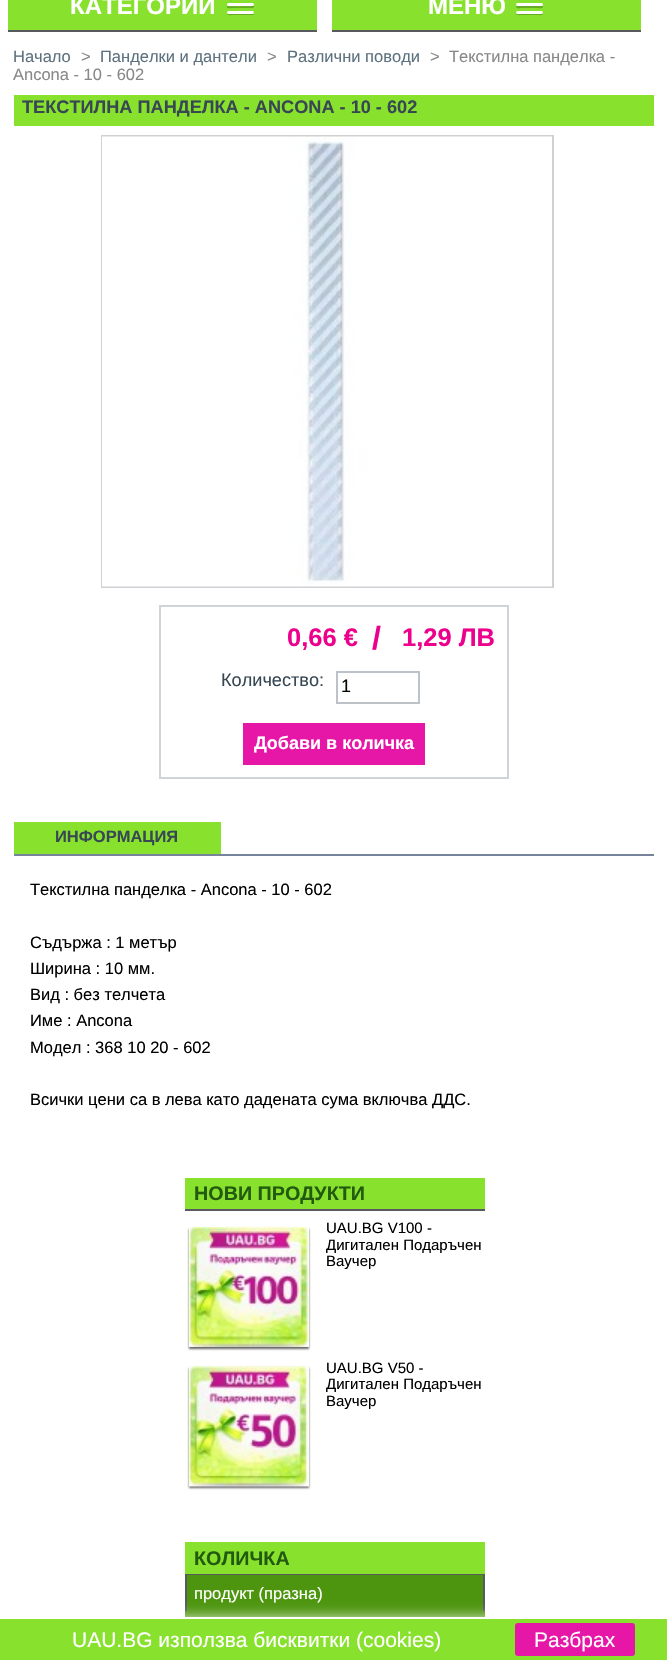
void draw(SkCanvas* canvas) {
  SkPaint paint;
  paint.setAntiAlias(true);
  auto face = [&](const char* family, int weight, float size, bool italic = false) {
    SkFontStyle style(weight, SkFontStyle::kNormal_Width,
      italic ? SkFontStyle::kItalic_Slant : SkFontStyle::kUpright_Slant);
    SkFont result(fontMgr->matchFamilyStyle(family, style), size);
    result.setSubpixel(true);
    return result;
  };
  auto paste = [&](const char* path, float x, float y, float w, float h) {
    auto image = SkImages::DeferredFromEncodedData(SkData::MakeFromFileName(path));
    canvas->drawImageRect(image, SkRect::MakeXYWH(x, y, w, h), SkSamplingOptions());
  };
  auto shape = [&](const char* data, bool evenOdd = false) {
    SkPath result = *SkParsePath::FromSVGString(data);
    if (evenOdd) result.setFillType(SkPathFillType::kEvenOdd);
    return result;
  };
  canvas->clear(0xffffffff);
  paint.setColor(0xff88e12d);
  canvas->drawRect(SkRect::MakeXYWH(8, 0, 309, 30), paint);
  paint.setColor(0xff595a5e);
  canvas->drawRect(SkRect::MakeXYWH(8, 30, 309, 2), paint);
  paint.setColor(0xff66a922);
  canvas->drawPath(shape("M227-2C226.5 1 232 0 232.5 0H252.5C254 0 254.5-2 253.5-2.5L252.5-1.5C251-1 227.5-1.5 227-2ZM227 6C225.5 9 232.5 8 232.5 8H253C254 7.5 254.5 6 253.5 5L252 6C250 6.5 228 6.5 227 6Z"), paint);
  paint.setColor(0xffffffff);
  canvas->drawRoundRect(SkRect::MakeXYWH(227, 3, 27, 3), 1.5f, 1.5f, paint);
  paint.setColor(0xff66a922);
  canvas->drawPath(shape("M227 13C226.5 16 232 15 232.5 15H252.5C254 15 254.5 13 253.5 12.5L252.5 13.5C251 14 227.5 13.5 227 13Z"), paint);
  paint.setColor(0xffffffff);
  canvas->drawRoundRect(SkRect::MakeXYWH(227, 11, 27, 3), 1.5f, 1.5f, paint);
  paint.setColor(0xff88e12d);
  canvas->drawRect(SkRect::MakeXYWH(332, 0, 309, 30), paint);
  paint.setColor(0xff595a5e);
  canvas->drawRect(SkRect::MakeXYWH(332, 30, 309, 2), paint);
  paint.setColor(0xff66a922);
  canvas->drawPath(shape("M516-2.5C514.5 1 521.5 0 521.5 0H537.5C537.5 0 544.5 1 543-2.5C542.5-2 542-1.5 541.5-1.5H517.5C517-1.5 516.5-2 516-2.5ZM516.5 5.5L516 7C516.5 9 521 8 521.5 8H537.5C538 8 542.5 9 543 7L542.5 5.5L541.5 6H517.5Z"), paint);
  paint.setColor(0xffffffff);
  canvas->drawRoundRect(SkRect::MakeXYWH(516, 3, 27, 3), 1.5f, 1.5f, paint);
  paint.setColor(0xff66a922);
  canvas->drawPath(shape("M516 12.5C514.5 16 521.5 15 521.5 15H537.5C537.5 15 544.5 16 543 12.5C542.5 13 542 13.5 541.5 13.5H517.5C517 13.5 516.5 13 516 12.5Z"), paint);
  paint.setColor(0xffffffff);
  canvas->drawRoundRect(SkRect::MakeXYWH(516, 11, 27, 3), 1.5f, 1.5f, paint);
  paint.setColor(0xff88e12d);
  canvas->drawRect(SkRect::MakeXYWH(14, 95, 640, 31), paint);
  paint.setStroke(true);
  paint.setStrokeWidth(2);
  paint.setColor(0xffd0d1d5);
  canvas->drawRect(SkRect::MakeXYWH(102, 136, 451, 451), paint);
  paste("img/1.png", 102, 136, 450, 451);
  paint.setColor(0xffd0d3d8);
  canvas->drawRect(SkRect::MakeXYWH(160, 606, 348, 172), paint);
  paint.setColor(0xffbdc2c9);
  canvas->drawRect(SkRect::MakeXYWH(337, 672, 82, 31), paint);
  paint.setStroke(false);
  {
    const struct { float x, y, w, h; SkColor color; } items[] = {
      {243, 723, 182, 42, 0xffe616a7},
      {14, 854, 640, 2, 0xff76839b},
      {14, 822, 207, 32, 0xff88e12d},
      {185, 1178, 300, 31, 0xff88e12d},
      {185, 1209, 300, 2, 0xff595a5e},
    };
    for (auto [x, y, w, h, color] : items) {
      paint.setColor(color);
      canvas->drawRect(SkRect::MakeXYWH(x, y, w, h), paint);
    }
  }
  paint.setColor(0xff666666);
  paint.setMaskFilter(SkMaskFilter::MakeBlur(kNormal_SkBlurStyle, 1));
  canvas->drawRect(SkRect::MakeXYWH(189, 1229, 120, 120), paint);
  paint.setMaskFilter(nullptr);
  paste("img/2.png", 189, 1227, 120, 120);
  paint.setMaskFilter(SkMaskFilter::MakeBlur(kNormal_SkBlurStyle, 1));
  canvas->drawRect(SkRect::MakeXYWH(189, 1368, 120, 120), paint);
  paint.setMaskFilter(nullptr);
  paste("img/3.png", 189, 1366, 120, 121);
  {
    const struct { float x, y, w, h; SkColor color; } items[] = {
      {185, 1611, 300, 6, 0xff4d950f},
      {185, 1542, 300, 32, 0xff88e12d},
      {185, 1574, 300, 1, 0xff595a5e},
      {187, 1575, 296, 36, 0xff4d950f},
      {483, 1575, 2, 36, 0xff595a5e},
      {185, 1575, 2, 36, 0xff595a5e},
    };
    for (auto [x, y, w, h, color] : items) {
      paint.setColor(color);
      canvas->drawRect(SkRect::MakeXYWH(x, y, w, h), paint);
    }
  }
  paint.setColor(0xffffffff);
  paint.setMaskFilter(SkMaskFilter::MakeBlur(kNormal_SkBlurStyle, 7.5f));
  canvas->drawRect(SkRect::MakeXYWH(0, 1619, 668, 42), paint);
  paint.setMaskFilter(nullptr);
  paint.setColor(0xff88e12d);
  canvas->drawRect(SkRect::MakeXYWH(0, 1619, 667, 41), paint);
  paint.setColor(0xffe616a7);
  canvas->drawRoundRect(SkRect::MakeXYWH(515, 1623, 120, 33), 3, 3, paint);
  auto f0 = face("Liberation Sans", 700, 24);
  paint.setColor(0xffffffff);
  canvas->drawString("КАТЕГОРИИ", 70, 14, f0, paint);
  canvas->drawString("МЕНЮ", 428, 14, f0, paint);
  auto f1 = face("Liberation Sans", 400, 16.5f);
  paint.setColor(0xff5d717e);
  canvas->drawString("Начало", 13, 62, f1, paint);
  paint.setColor(0xff888888);
  canvas->drawString(">", 81, 62, f1, paint);
  paint.setColor(0xff5d717e);
  canvas->drawString("Панделки и дантели", 100, 62, f1, paint);
  paint.setColor(0xff888888);
  canvas->drawString(">", 267, 62, f1, paint);
  paint.setColor(0xff5d717e);
  canvas->drawString("Различни поводи", 287, 62, f1, paint);
  paint.setColor(0xff888888);
  {
    const struct { const char* s; float x, y; } items[] = {
      {">", 430, 62},
      {"Текстилна панделка -", 449, 62},
      {"Ancona - 10 - 602", 13, 80},
    };
    for (auto [s, x, y] : items) {
      canvas->drawString(s, x, y, f1, paint);
    }
  }
  auto f2 = face("Liberation Sans", 700, 18.15f);
  paint.setColor(0xff374853);
  canvas->drawString("ТЕКСТИЛНА ПАНДЕЛКА - ANCONA - 10 - 602", 22, 113, f2, paint);
  auto f3 = face("Liberation Sans", 700, 25.5f);
  paint.setColor(0xffec008c);
  canvas->drawString("0,66 €", 287, 646, f3, paint);
  auto f4 = face("Liberation Sans", 700, 32);
  canvas->drawString("/", 372, 649, f4, paint);
  canvas->drawString("1,29 ЛВ", 402, 646, f3, paint);
  auto f5 = face("Liberation Sans", 400, 18.15f);
  paint.setColor(0xff374853);
  canvas->drawString("Количество:", 221, 686, f5, paint);
  auto f6 = face("Liberation Sans", 400, 18);
  paint.setColor(0xff000000);
  canvas->drawString("1", 341, 692, f6, paint);
  auto f7 = face("Liberation Sans", 700, 18);
  paint.setColor(0xffffffff);
  canvas->drawString("Добави в количка", 254, 749, f7, paint);
  auto f8 = face("Liberation Sans", 700, 16.5f);
  paint.setColor(0xff374853);
  canvas->drawString("ИНФОРМАЦИЯ", 55, 842, f8, paint);
  paint.setColor(0xff000000);
  {
    const struct { const char* s; float x, y; } items[] = {
      {"Текстилна панделка - Ancona - 10 - 602", 30, 895},
      {"Съдържа : 1 метър", 30, 948},
      {"Ширина : 10 мм.", 30, 974},
      {"Вид : без телчета", 30, 1000},
      {"Име : Ancona", 30, 1026},
      {"Модел : 368 10 20 - 602", 30, 1053},
      {"Всички цени са в лева като дадената сума включва ДДС.", 30, 1105},
    };
    for (auto [s, x, y] : items) {
      canvas->drawString(s, x, y, f1, paint);
    }
  }
  auto f9 = face("Liberation Sans", 700, 19.75f);
  paint.setColor(0xff225a10);
  canvas->drawString("НОВИ ПРОДУКТИ", 194, 1200, f9, paint);
  auto f10 = face("Liberation Sans", 400, 15);
  paint.setColor(0xff000000);
  {
    const struct { const char* s; float x, y; } items[] = {
      {"UAU.BG V100 -", 326, 1233},
      {"Дигитален Подаръчен", 326, 1250},
      {"Ваучер", 326, 1266},
      {"UAU.BG V50 -", 326, 1373},
      {"Дигитален Подаръчен", 326, 1389},
      {"Ваучер", 326, 1406},
    };
    for (auto [s, x, y] : items) {
      canvas->drawString(s, x, y, f10, paint);
    }
  }
  paint.setColor(0xff225a10);
  canvas->drawString("КОЛИЧКА", 194, 1565, f9, paint);
  paint.setColor(0xffffffff);
  canvas->drawString("продукт (празна)", 194, 1599, f1, paint);
  auto f11 = face("Liberation Sans", 400, 21);
  canvas->drawString("UAU.BG използва бисквитки (cookies)", 72, 1647, f11, paint);
  canvas->drawString("Разбрах", 534, 1647, f11, paint);
}
